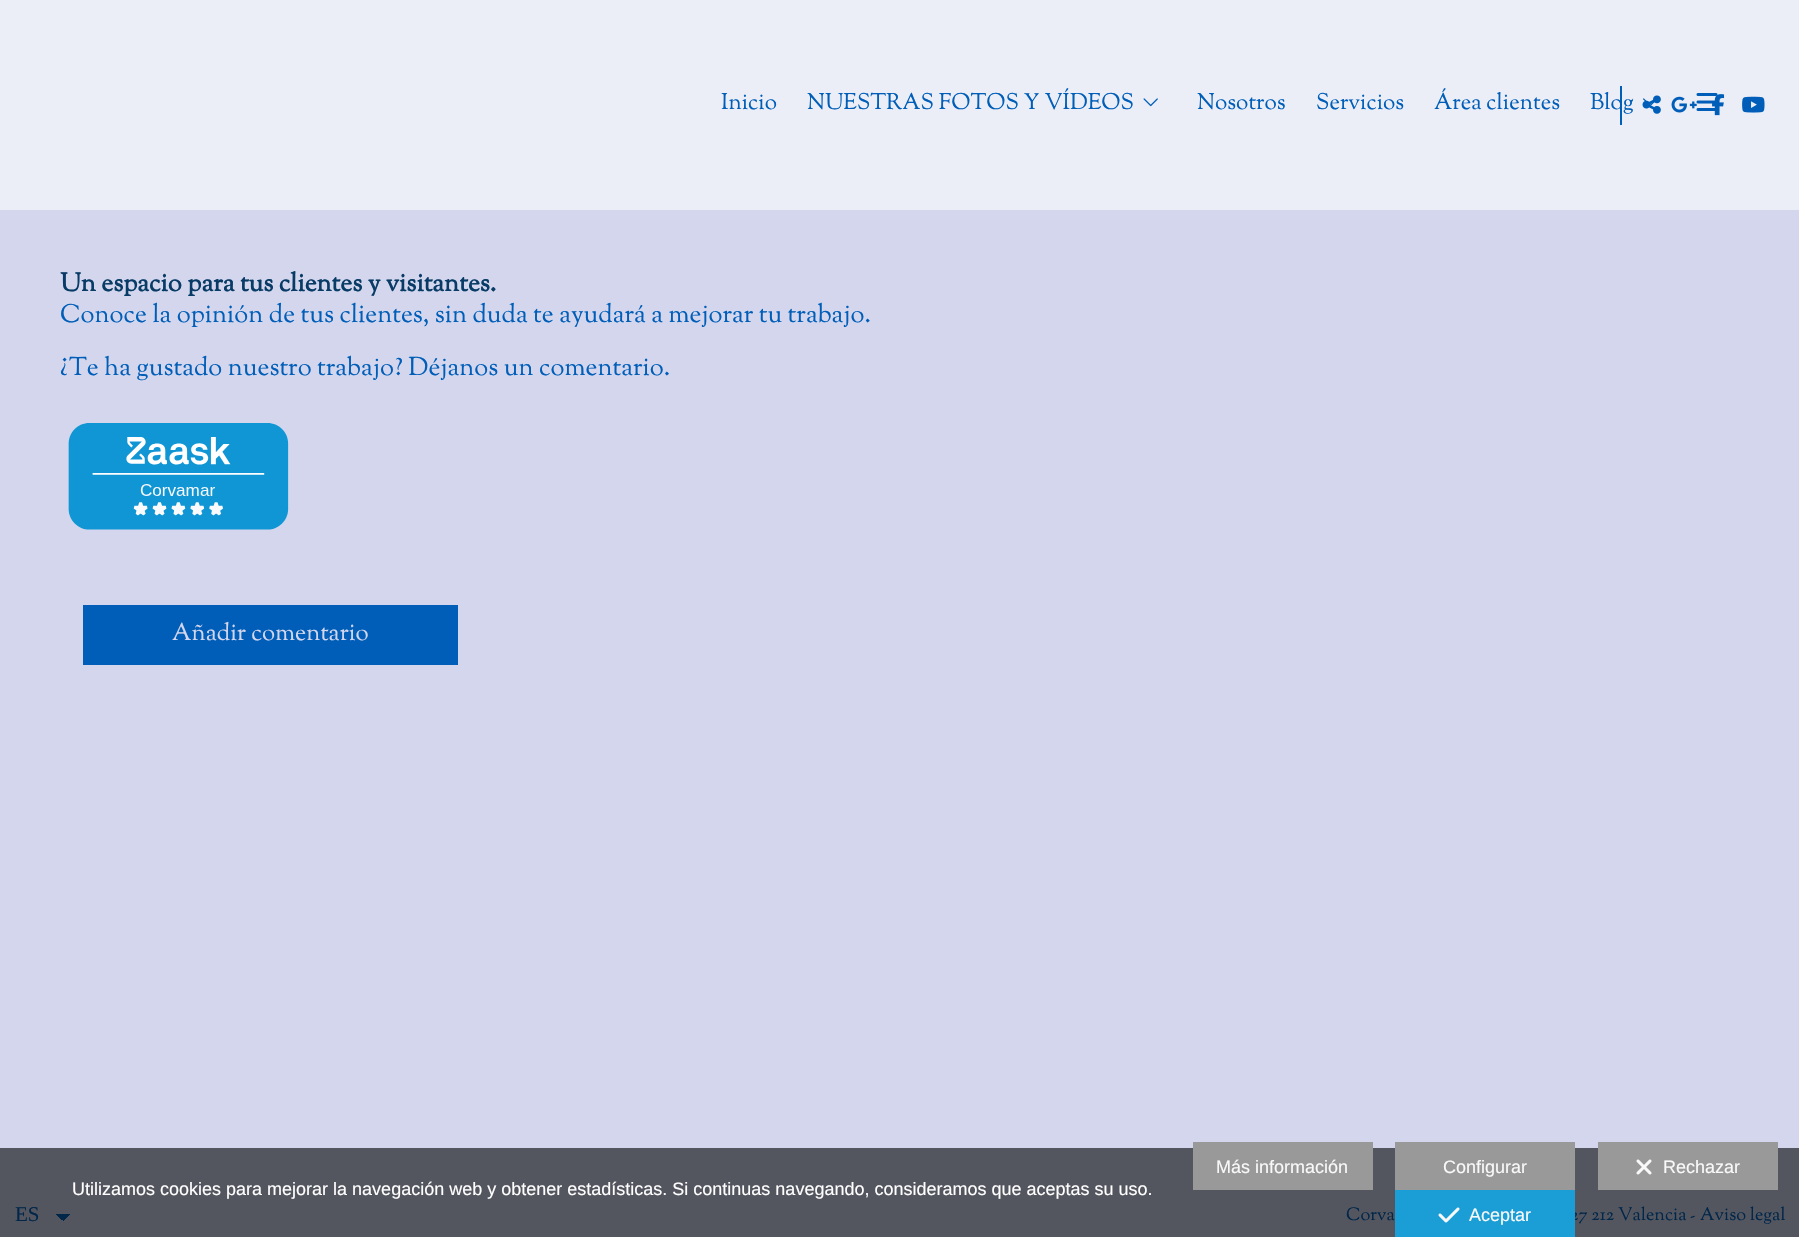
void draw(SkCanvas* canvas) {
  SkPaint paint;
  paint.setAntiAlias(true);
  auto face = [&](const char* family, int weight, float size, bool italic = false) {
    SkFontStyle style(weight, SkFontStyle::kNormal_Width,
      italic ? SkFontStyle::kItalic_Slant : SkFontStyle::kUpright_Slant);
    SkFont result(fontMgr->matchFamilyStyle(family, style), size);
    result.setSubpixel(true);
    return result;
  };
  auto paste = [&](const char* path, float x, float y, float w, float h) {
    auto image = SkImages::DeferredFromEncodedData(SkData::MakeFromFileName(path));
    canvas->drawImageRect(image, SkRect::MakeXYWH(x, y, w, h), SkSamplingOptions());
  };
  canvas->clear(0xffd3d6ed);
  paint.setColor(0xff54565f);
  canvas->drawRect(SkRect::MakeXYWH(0, 1148, 1799, 89), paint);
  paint.setColor(0xffeceef7);
  canvas->drawRect(SkRect::MakeXYWH(0, 0, 1799, 210), paint);
  paste("img/1.png", 1143, 98, 15, 9);
  paste("img/4.png", 1642, 95, 19, 19);
  paste("img/2.png", 1643, 98, 12, 8);
  paste("img/5.png", 1671, 96, 26, 17);
  paste("img/6.png", 1712, 94, 13, 22);
  paste("img/3.png", 1696, 93, 22, 18);
  paint.setColor(0xff005eb8);
  canvas->drawRect(SkRect::MakeXYWH(1620, 86, 2, 39), paint);
  paste("img/7.png", 1742, 96, 23, 17);
  paste("img/8.png", 68, 423, 221, 107);
  canvas->drawRect(SkRect::MakeXYWH(83, 605, 375, 60), paint);
  {
    const SkColor colors[] = {0xff00264a, 0xff54565f};
    const float stops[] = {0.5f, 0.5f};
    const SkPoint ends[] = {{63, 1214}, {71, 1221}};
    paint.setShader(SkGradientShader::MakeLinear(ends, colors, stops, 2, SkTileMode::kClamp));
    paint.setAlpha(255);
  }
  canvas->drawRect(SkRect::MakeXYWH(63, 1214, 8, 7), paint);
  {
    const SkColor colors[] = {0xff54565f, 0xff00264a};
    const float stops[] = {0.5f, 0.5f};
    const SkPoint ends[] = {{56, 1221}, {63, 1214}};
    paint.setShader(SkGradientShader::MakeLinear(ends, colors, stops, 2, SkTileMode::kClamp));
    paint.setAlpha(255);
  }
  canvas->drawRect(SkRect::MakeXYWH(56, 1214, 7, 6), paint);
  paint.setShader(nullptr);
  {
    const struct { float x, y, w, h; SkColor color; } items[] = {
      {1193, 1142, 180, 48, 0xff999999},
      {1395, 1142, 180, 48, 0xff999999},
      {1598, 1142, 180, 48, 0xff999999},
    };
    for (auto [x, y, w, h, color] : items) {
      paint.setColor(color);
      canvas->drawRect(SkRect::MakeXYWH(x, y, w, h), paint);
    }
  }
  paste("img/9.png", 1636, 1159, 16, 16);
  auto f0 = face("OFL Sorts Mill Goudy TT", 500, 22.5f);
  paint.setColor(0xff005eb8);
  {
    const struct { const char* s; float x, y; } items[] = {
      {"Inicio", 721, 109},
      {"NUESTRAS FOTOS Y VÍDEOS", 807, 109},
      {"Nosotros", 1197, 109},
      {"Servicios", 1316, 109},
      {"Área clientes", 1434, 109},
      {"Blog", 1590, 109},
    };
    for (auto [s, x, y] : items) {
      canvas->drawString(s, x, y, f0, paint);
    }
  }
  auto f1 = face("OFL Sorts Mill Goudy TT", 700, 25.5f);
  paint.setColor(0xff083b66);
  canvas->drawString("Un espacio para tus clientes y visitantes.", 60, 291, f1, paint);
  auto f2 = face("OFL Sorts Mill Goudy TT", 500, 25.5f);
  paint.setColor(0xff005eb8);
  canvas->drawString("Conoce la opinión de tus clientes, sin duda te ayudará a mejorar tu trabajo.", 60, 322, f2, paint);
  canvas->drawString("¿Te ha gustado nuestro trabajo? Déjanos un comentario.", 60, 375, f2, paint);
  auto f3 = face("OFL Sorts Mill Goudy TT", 500, 24);
  paint.setColor(0xffd3d6ed);
  canvas->drawString("Añadir comentario", 172, 640, f3, paint);
  auto f4 = face("Liberation Serif", 400, 21);
  paint.setColor(0xff00264a);
  canvas->drawString("ES", 15, 1221, f4, paint);
  auto f5 = face("OFL Sorts Mill Goudy TT", 500, 18);
  canvas->drawString("Corva", 1346, 1220, f5, paint);
  canvas->drawString("27 212 Valencia", 1570, 1220, f5, paint);
  auto f6 = face("OFL Sorts Mill Goudy TT", 500, 16);
  canvas->drawString("-", 1690, 1220, f6, paint);
  canvas->drawString("Aviso legal", 1700, 1220, f5, paint);
  auto f7 = face("Liberation Sans", 400, 18);
  paint.setColor(0xffffffff);
  canvas->drawString("Utilizamos cookies para mejorar la navegación web y obtener estadísticas. Si continuas navegando, consideramos que aceptas su uso.", 72, 1195, f7, paint);
  paint.setColor(0xfff9f9f9);
  {
    const struct { const char* s; float x, y; } items[] = {
      {"Más información", 1216, 1173},
      {"Configurar", 1443, 1173},
      {"Rechazar", 1663, 1173},
    };
    for (auto [s, x, y] : items) {
      canvas->drawString(s, x, y, f7, paint);
    }
  }
  paint.setColor(0xff1a9ed5);
  canvas->drawRect(SkRect::MakeXYWH(1395, 1190, 180, 47), paint);
  paste("img/10.png", 1438, 1207, 22, 16);
  paint.setColor(0xfff9f9f9);
  canvas->drawString("Aceptar", 1469, 1221, f7, paint);
}
